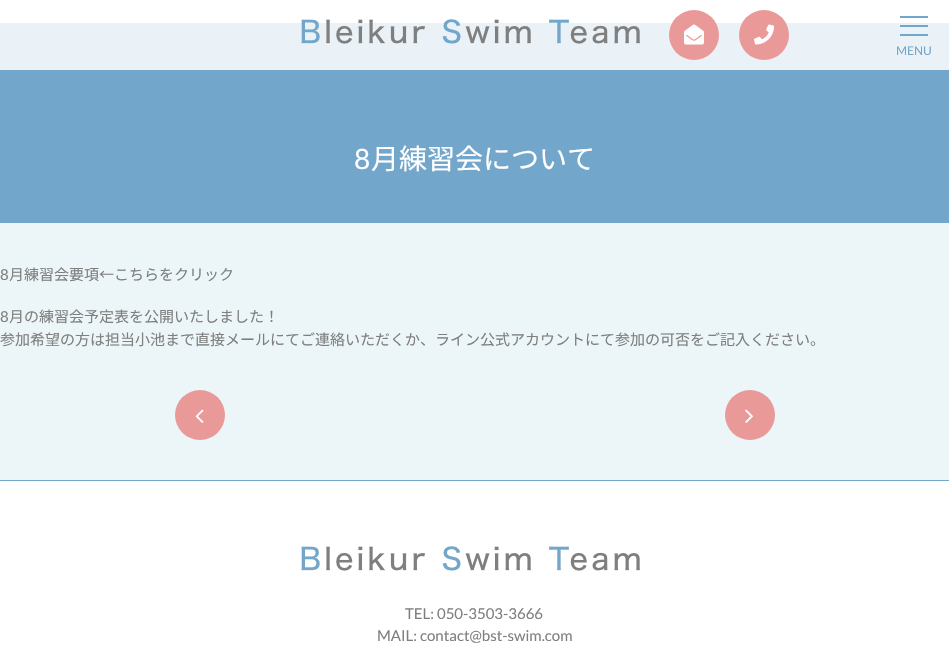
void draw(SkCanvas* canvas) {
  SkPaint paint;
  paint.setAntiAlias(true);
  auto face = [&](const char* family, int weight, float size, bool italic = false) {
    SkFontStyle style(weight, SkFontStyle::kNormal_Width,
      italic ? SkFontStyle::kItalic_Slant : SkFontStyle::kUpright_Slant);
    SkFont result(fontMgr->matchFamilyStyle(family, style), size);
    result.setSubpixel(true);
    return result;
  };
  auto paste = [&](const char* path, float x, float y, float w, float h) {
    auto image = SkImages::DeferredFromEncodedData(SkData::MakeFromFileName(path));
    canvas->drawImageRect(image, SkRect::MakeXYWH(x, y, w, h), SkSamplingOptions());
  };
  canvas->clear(0xffffffff);
  paint.setColor(0xffeaf2f7);
  canvas->drawRect(SkRect::MakeXYWH(0, 23, 949, 47), paint);
  paste("img/1.png", 301, 19, 339, 25);
  paint.setColor(0xffea9999);
  canvas->drawCircle(694, 35, 25, paint);
  paste("img/2.png", 684, 24, 20, 21);
  canvas->drawCircle(764, 35, 25, paint);
  paste("img/3.png", 754, 24, 20, 21);
  {
    const struct { float x, y, w, h; SkColor color; } items[] = {
      {900, 16, 28, 2, 0xff73a6cb},
      {900, 25, 28, 2, 0xff73a6cb},
      {900, 34, 28, 2, 0xff73a6cb},
      {0, 70, 949, 153, 0xff73a6cb},
      {0, 223, 949, 257, 0xffecf6f8},
    };
    for (auto [x, y, w, h, color] : items) {
      paint.setColor(color);
      canvas->drawRect(SkRect::MakeXYWH(x, y, w, h), paint);
    }
  }
  paint.setColor(0xffea9999);
  canvas->drawCircle(200, 415, 25, paint);
  paste("img/4.png", 195, 409, 9, 14);
  canvas->drawCircle(750, 415, 25, paint);
  paste("img/5.png", 745, 409, 8, 14);
  paint.setColor(0xff73a6cb);
  canvas->drawRect(SkRect::MakeXYWH(0, 480, 949, 1), paint);
  paste("img/6.png", 301, 546, 339, 25);
  auto f0 = face("Lato", 400, 12);
  canvas->drawString("MENU", 896, 55, f0, paint);
  auto f1 = face("Lato", 400, 28);
  paint.setColor(0xffffffff);
  canvas->drawString("8", 354, 169, f1, paint);
  auto f2 = face("Noto Sans JP", 400, 28);
  canvas->drawString("月練習会について", 371, 169, f2, paint);
  auto f3 = face("Lato", 400, 15);
  paint.setColor(0xff7f7f7f);
  canvas->drawString("8", 0, 280, f3, paint);
  auto f4 = face("Noto Sans JP", 400, 15);
  canvas->drawString("月練習会要項←こちらをクリック", 9, 280, f4, paint);
  canvas->drawString("8", 0, 322, f3, paint);
  canvas->drawString("月の練習会予定表を公開いたしました！", 9, 322, f4, paint);
  canvas->drawString("参加希望の方は担当小池まで直接メールにてご連絡いただくか、ライン公式アカウントにて参加の可否をご記入ください。", 0, 345, f4, paint);
  canvas->drawString("TEL: 050-3503-3666", 405, 619, f3, paint);
  canvas->drawString("MAIL: contact@bst-swim.com", 377, 641, f3, paint);
}
